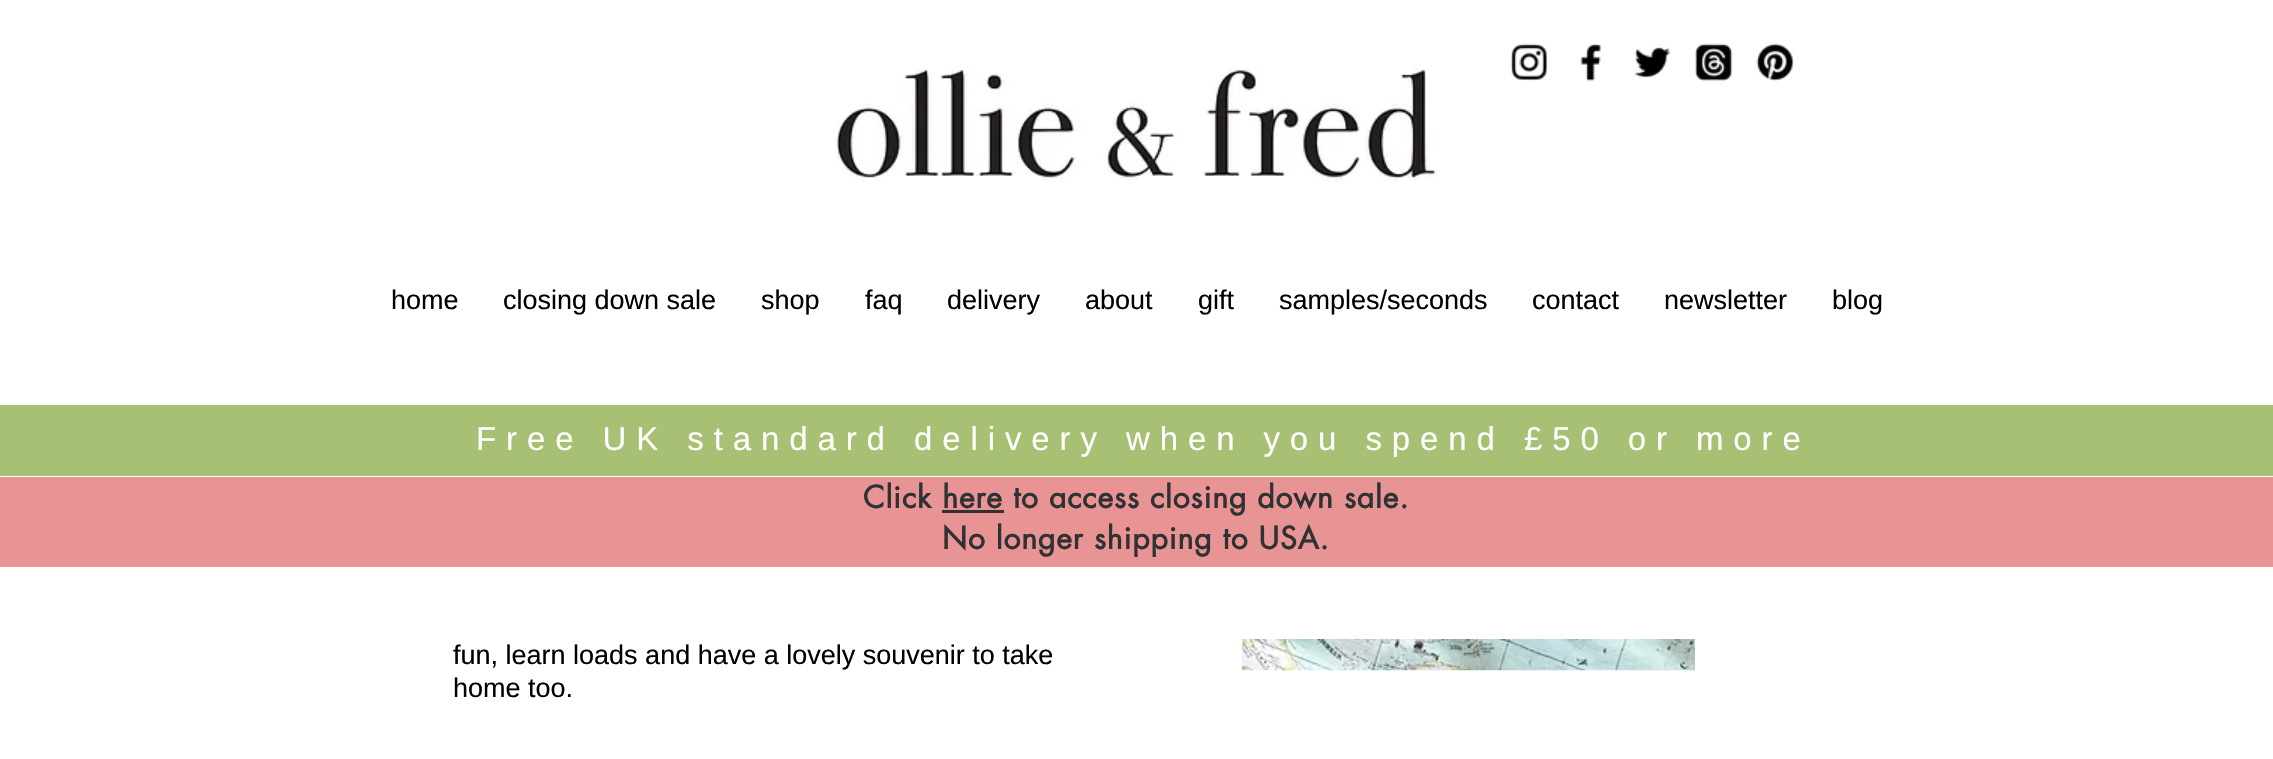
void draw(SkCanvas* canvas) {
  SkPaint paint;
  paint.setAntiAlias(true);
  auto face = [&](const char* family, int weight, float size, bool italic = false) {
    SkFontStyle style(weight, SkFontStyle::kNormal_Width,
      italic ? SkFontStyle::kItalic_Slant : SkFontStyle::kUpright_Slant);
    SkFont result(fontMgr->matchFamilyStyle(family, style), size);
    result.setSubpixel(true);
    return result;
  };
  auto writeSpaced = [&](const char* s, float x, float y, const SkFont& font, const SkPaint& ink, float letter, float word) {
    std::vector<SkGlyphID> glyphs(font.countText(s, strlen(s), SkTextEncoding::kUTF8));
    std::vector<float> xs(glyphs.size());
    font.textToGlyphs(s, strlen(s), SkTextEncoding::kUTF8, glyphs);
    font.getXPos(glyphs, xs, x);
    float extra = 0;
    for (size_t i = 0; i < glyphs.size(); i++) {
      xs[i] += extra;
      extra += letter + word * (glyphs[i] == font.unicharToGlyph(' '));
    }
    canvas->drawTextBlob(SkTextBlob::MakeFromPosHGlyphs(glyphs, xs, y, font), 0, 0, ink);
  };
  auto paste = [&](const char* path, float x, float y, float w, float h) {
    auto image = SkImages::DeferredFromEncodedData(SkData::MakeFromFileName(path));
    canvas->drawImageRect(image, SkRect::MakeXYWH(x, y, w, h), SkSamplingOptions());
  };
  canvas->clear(0xffffffff);
  paste("img/1.png", 1510, 43, 38, 38);
  paste("img/2.png", 1580, 43, 21, 39);
  paste("img/3.png", 1634, 47, 37, 31);
  paste("img/4.png", 1695, 43, 38, 39);
  paste("img/5.png", 1756, 43, 38, 38);
  paste("img/6.png", 836, 67, 601, 115);
  {
    const struct { float x, y, w, h; SkColor color; } items[] = {
      {0, 405, 2273, 71, 0xffa7c073},
      {0, 477, 2273, 90, 0xffe89394},
      {942, 510, 62, 3, 0xff303132},
    };
    for (auto [x, y, w, h, color] : items) {
      paint.setColor(color);
      canvas->drawRect(SkRect::MakeXYWH(x, y, w, h), paint);
    }
  }
  paste("img/7.png", 1242, 639, 453, 32);
  auto f0 = face("Liberation Sans", 400, 27);
  paint.setColor(0xff000000);
  {
    const struct { const char* s; float x, y; } items[] = {
      {"home", 391, 309},
      {"closing down sale", 503, 309},
      {"shop", 761, 309},
      {"faq", 865, 309},
      {"delivery", 947, 309},
      {"about", 1085, 309},
      {"gift", 1198, 309},
      {"samples/seconds", 1279, 309},
      {"contact", 1532, 309},
      {"newsletter", 1664, 309},
      {"blog", 1832, 309},
    };
    for (auto [s, x, y] : items) {
      canvas->drawString(s, x, y, f0, paint);
    }
  }
  auto f1 = face("Liberation Sans", 400, 33);
  paint.setColor(0xffffffff);
  writeSpaced("Free UK standard delivery when you spend £50 or more", 476, 450, f1, paint, 9.9f, 0);
  auto f2 = face("futura", 700, 30);
  paint.setColor(0xff303132);
  writeSpaced("Click here to access closing down sale.", 863, 508, f2, paint, 0.9f, 0);
  writeSpaced("No longer shipping to USA.", 942, 549, f2, paint, 0.9f, 0);
  paint.setColor(0xff000000);
  canvas->drawString("fun, learn loads and have a lovely souvenir to take", 453, 664, f0, paint);
  canvas->drawString("home too.", 453, 697, f0, paint);
}
